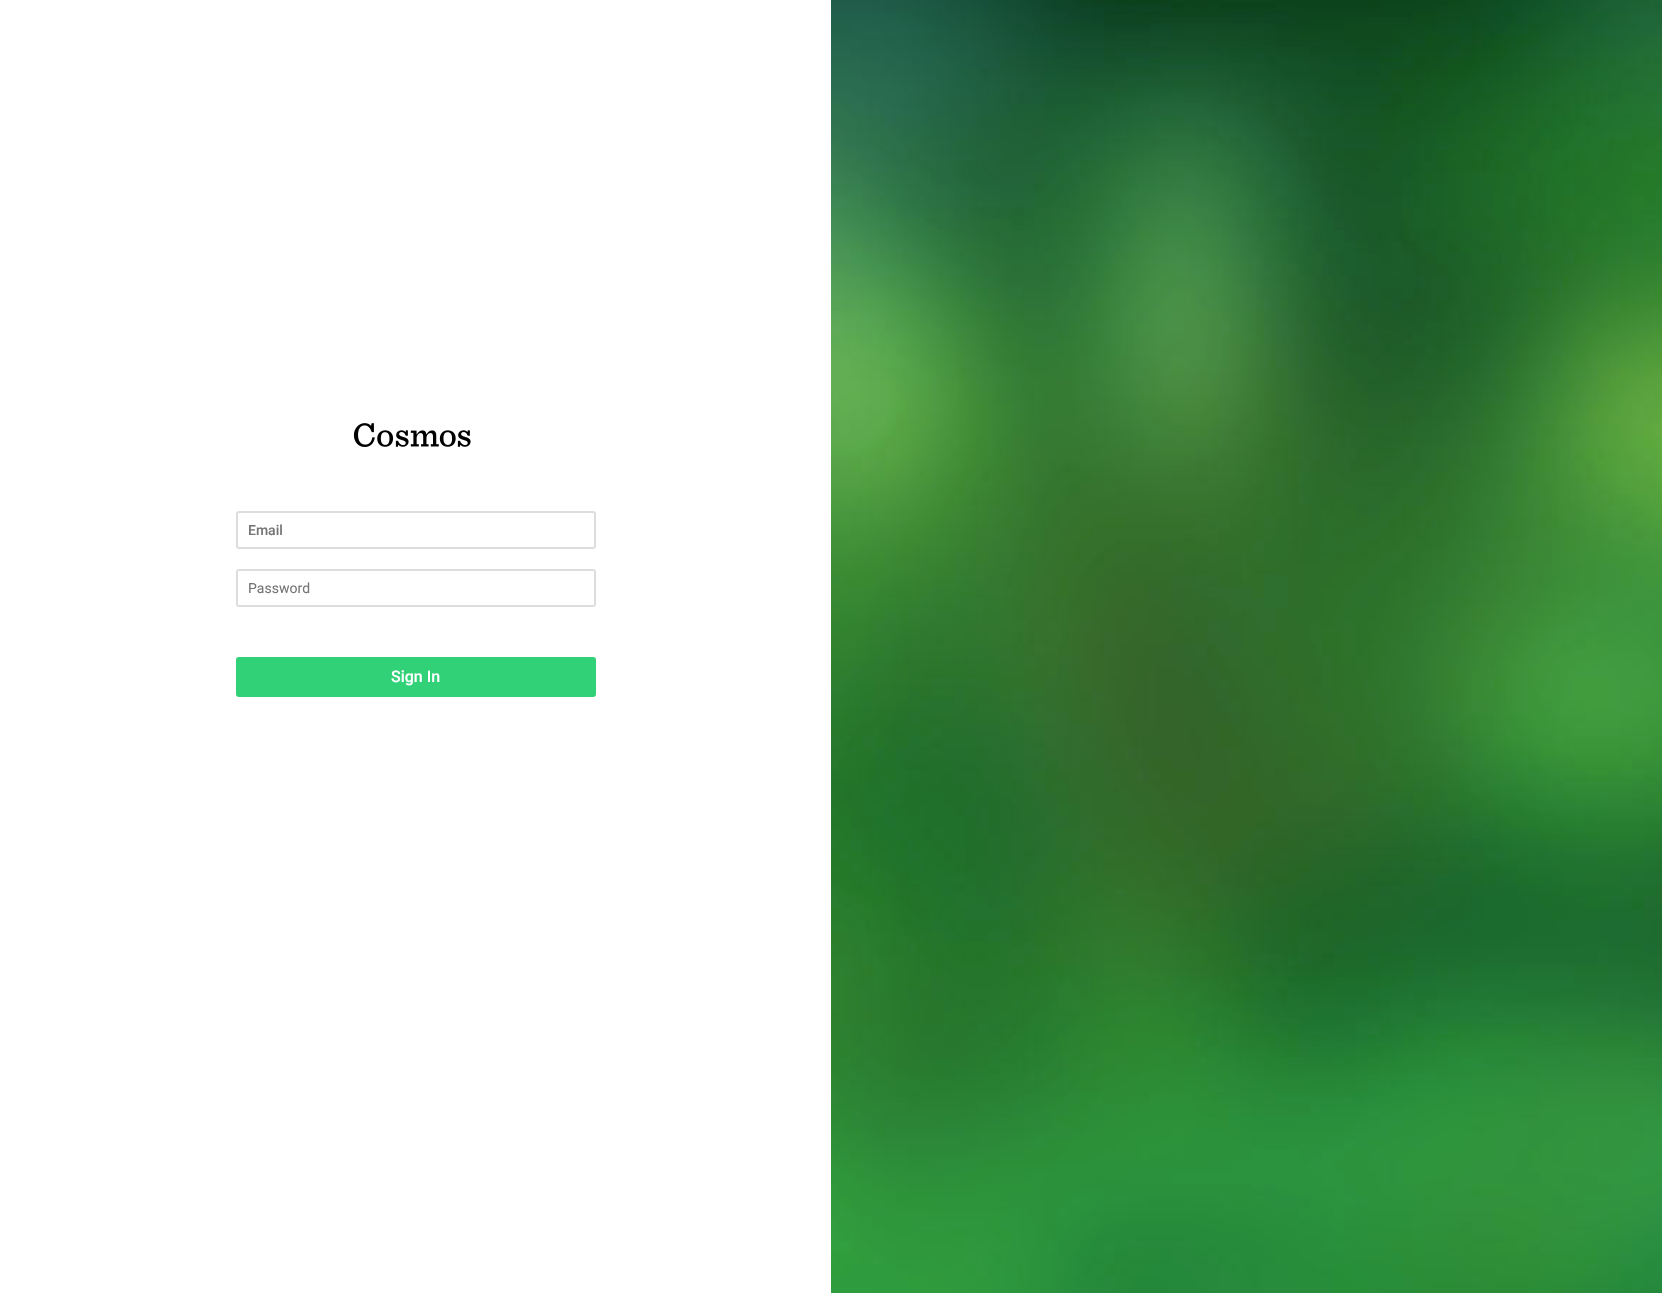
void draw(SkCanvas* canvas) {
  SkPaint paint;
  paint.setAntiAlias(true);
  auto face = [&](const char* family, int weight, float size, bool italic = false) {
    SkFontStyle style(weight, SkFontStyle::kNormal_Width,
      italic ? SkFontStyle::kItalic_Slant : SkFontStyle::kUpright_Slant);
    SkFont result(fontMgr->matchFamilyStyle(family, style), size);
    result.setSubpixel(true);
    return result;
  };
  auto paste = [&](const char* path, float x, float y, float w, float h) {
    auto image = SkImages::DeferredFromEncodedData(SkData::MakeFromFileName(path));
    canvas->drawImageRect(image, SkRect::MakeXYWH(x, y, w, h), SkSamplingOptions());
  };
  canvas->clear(0xffffffff);
  paste("img/1.png", 353, 423, 118, 24);
  paint.setStroke(true);
  paint.setStrokeWidth(2);
  paint.setColor(0xffdddddd);
  canvas->drawRoundRect(SkRect::MakeXYWH(237, 512, 358, 36), 2, 2, paint);
  canvas->drawRoundRect(SkRect::MakeXYWH(237, 570, 358, 36), 2, 2, paint);
  paint.setStroke(false);
  paint.setColor(0xff31d277);
  canvas->drawRoundRect(SkRect::MakeXYWH(236, 657, 360, 40), 3, 3, paint);
  paste("img/2.png", 831, 0, 831, 1293);
  auto f0 = face("Roboto", 500, 14);
  paint.setColor(0xff757575);
  canvas->drawString("Email", 248, 535, f0, paint);
  auto f1 = face("Roboto", 400, 14);
  canvas->drawString("Password", 248, 593, f1, paint);
  auto f2 = face("Roboto", 500, 16);
  paint.setColor(0xffffffff);
  canvas->drawString("Sign In", 391, 682, f2, paint);
}
